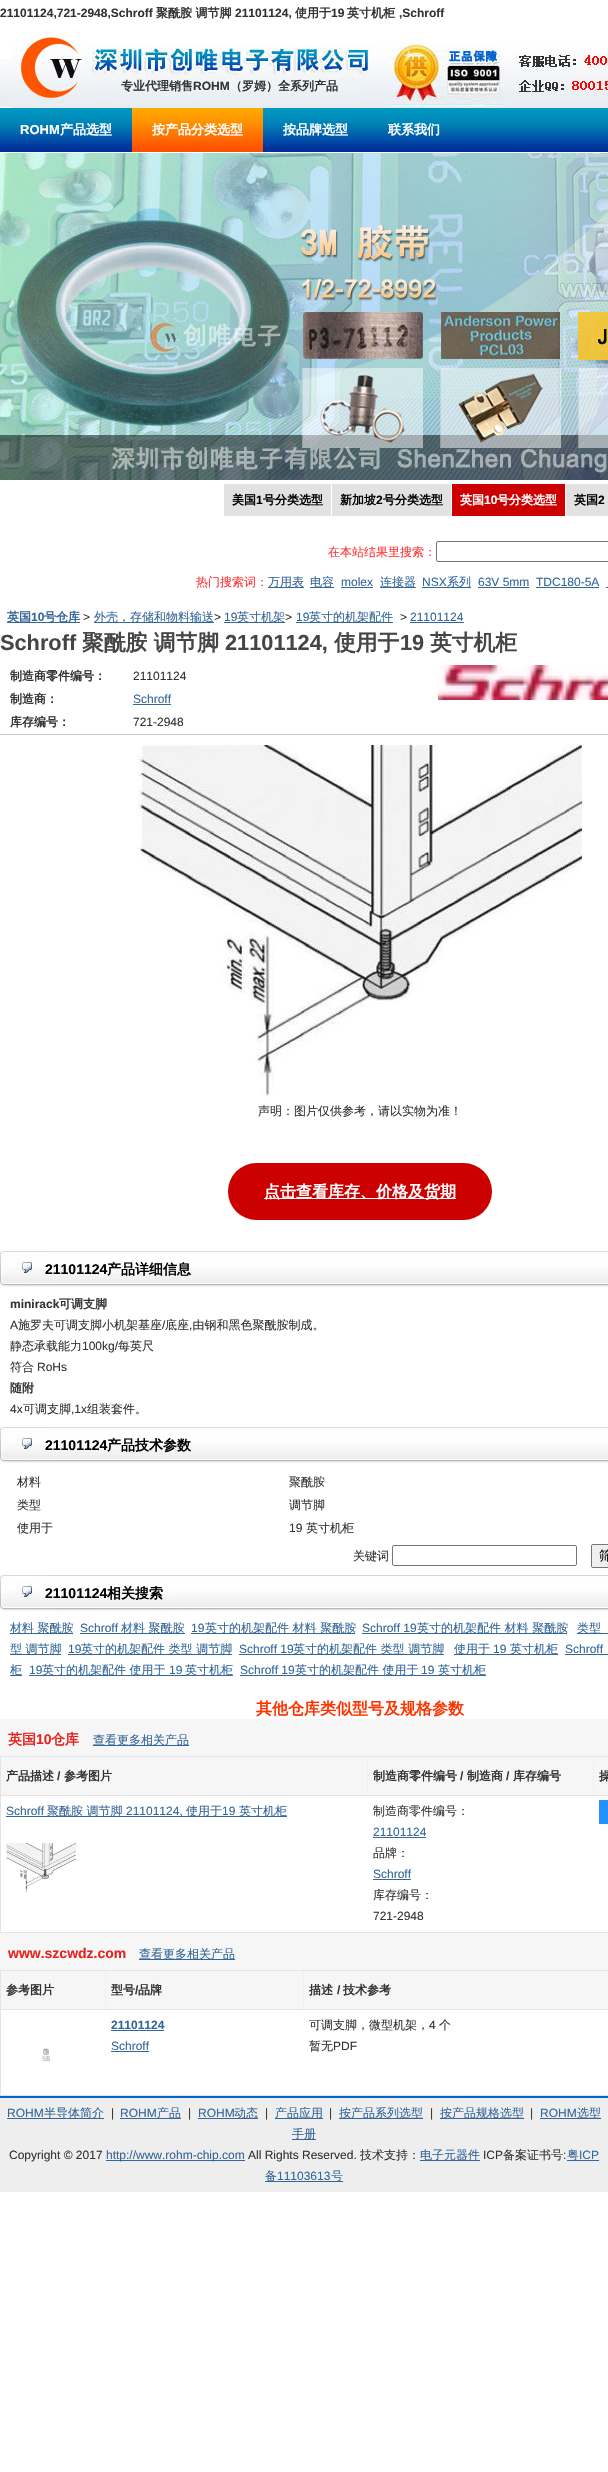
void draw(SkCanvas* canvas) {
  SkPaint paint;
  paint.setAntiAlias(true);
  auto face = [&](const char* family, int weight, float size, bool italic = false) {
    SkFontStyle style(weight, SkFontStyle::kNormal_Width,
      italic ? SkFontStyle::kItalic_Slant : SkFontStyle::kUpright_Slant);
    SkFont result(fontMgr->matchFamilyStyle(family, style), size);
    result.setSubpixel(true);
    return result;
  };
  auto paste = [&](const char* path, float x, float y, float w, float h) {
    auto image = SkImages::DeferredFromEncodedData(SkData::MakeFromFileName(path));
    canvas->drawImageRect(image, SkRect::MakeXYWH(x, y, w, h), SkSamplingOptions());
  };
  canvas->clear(0xffffffff);
  paste("img/1.png", 0, 59, 608, 93);
  paste("img/2.png", 12, 34, 79, 74);
  paste("img/3.png", 91, 39, 517, 69);
  paste("img/4.png", 132, 108, 131, 44);
  paste("img/5.png", 0, 153, 608, 327);
  {
    const struct { float x, y, w, h; SkColor color; } items[] = {
      {224, 484, 107, 32, 0xffe2e2e2},
      {332, 484, 119, 32, 0xffe2e2e2},
      {452, 484, 113, 32, 0xffcc0000},
      {566, 484, 42, 32, 0xffe2e2e2},
    };
    for (auto [x, y, w, h, color] : items) {
      paint.setColor(color);
      canvas->drawRect(SkRect::MakeXYWH(x, y, w, h), paint);
    }
  }
  paint.setStroke(true);
  paint.setStrokeWidth(1);
  paint.setColor(0xff767676);
  canvas->drawRoundRect(SkRect::MakeXYWH(436.5f, 541.5f, 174, 20), 1.5f, 1.5f, paint);
  paint.setStroke(false);
  {
    const struct { float x, y, w, h; SkColor color; } items[] = {
      {268, 587, 36, 1, 0xff336699},
      {310, 587, 24, 1, 0xff336699},
      {341, 587, 32, 1, 0xff336699},
      {380, 587, 36, 1, 0xff336699},
      {422, 587, 49, 1, 0xff336699},
      {478, 587, 51, 1, 0xff336699},
      {536, 587, 63, 1, 0xff336699},
      {606, 587, 2, 1, 0xff336699},
      {7, 622, 73, 1, 0xff336699},
      {94, 622, 120, 1, 0xff336699},
      {224, 622, 61, 1, 0xff336699},
      {296, 622, 97, 1, 0xff336699},
      {410, 622, 54, 1, 0xff336699},
      {0, 734, 608, 1, 0xffcccccc},
      {133, 704, 38, 1, 0xff336699},
    };
    for (auto [x, y, w, h, color] : items) {
      paint.setColor(color);
      canvas->drawRect(SkRect::MakeXYWH(x, y, w, h), paint);
    }
  }
  paste("img/6.png", 438, 665, 170, 35);
  paste("img/7.png", 138, 745, 444, 352);
  paint.setColor(0xffcc0000);
  canvas->drawRoundRect(SkRect::MakeXYWH(228, 1163, 264, 57), 28.5f, 28.5f, paint);
  paint.setColor(0xffffffff);
  canvas->drawRect(SkRect::MakeXYWH(264, 1198, 192, 1), paint);
  paste("img/8.png", 0, 1251, 608, 36);
  paste("img/8.png", 0, 1427, 608, 36);
  paint.setStroke(true);
  paint.setColor(0xff767676);
  canvas->drawRoundRect(SkRect::MakeXYWH(392.5f, 1545.5f, 184, 20), 1.5f, 1.5f, paint);
  paint.setStroke(false);
  paint.setColor(0xffefefef);
  canvas->drawRoundRect(SkRect::MakeXYWH(591.5f, 1544.5f, 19, 23), 1.5f, 1.5f, paint);
  paint.setStroke(true);
  paint.setColor(0xff767676);
  canvas->drawRoundRect(SkRect::MakeXYWH(591.5f, 1544.5f, 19, 23), 1.5f, 1.5f, paint);
  paste("img/8.png", 0, 1575, 608, 36);
  paint.setStroke(false);
  {
    const struct { float x, y, w, h; SkColor color; } items[] = {
      {10, 1633, 63, 1, 0xff336699},
      {80, 1633, 105, 1, 0xff336699},
      {191, 1633, 164, 1, 0xff336699},
      {362, 1633, 205, 1, 0xff336699},
      {577, 1633, 31, 1, 0xff336699},
      {10, 1654, 51, 1, 0xff336699},
      {68, 1654, 164, 1, 0xff336699},
      {239, 1654, 205, 1, 0xff336699},
      {454, 1654, 104, 1, 0xff336699},
      {565, 1654, 43, 1, 0xff336699},
      {10, 1675, 12, 1, 0xff336699},
      {29, 1675, 204, 1, 0xff336699},
      {240, 1675, 246, 1, 0xff336699},
      {0, 1719, 608, 37, 0xfff6f6f6},
      {93, 1745, 96, 1, 0xff336699},
      {0, 1756, 608, 177, 0xffe4e4e4},
      {367, 1757, 227, 38, 0xffefefef},
      {1, 1757, 366, 38, 0xfff6f6f6},
      {368, 1757, 225, 38, 0xfff6f6f6},
      {594, 1757, 14, 38, 0xfff6f6f6},
      {1, 1796, 607, 136, 0xffffffff},
      {6, 1816, 281, 1, 0xff336699},
    };
    for (auto [x, y, w, h, color] : items) {
      paint.setColor(color);
      canvas->drawRect(SkRect::MakeXYWH(x, y, w, h), paint);
    }
  }
  paste("img/9.png", 6, 1843, 70, 50);
  {
    const struct { float x, y, w, h; SkColor color; } items[] = {
      {373, 1837, 53, 1, 0xff336699},
      {373, 1879, 38, 1, 0xff336699},
      {599, 1800, 9, 24, 0xff2591ff},
      {0, 1933, 608, 37, 0xfff6f6f6},
      {139, 1959, 96, 1, 0xff336699},
      {0, 1970, 608, 126, 0xffe4e4e4},
      {105, 1971, 199, 38, 0xffefefef},
      {1, 1971, 104, 38, 0xfff6f6f6},
      {106, 1971, 197, 38, 0xfff6f6f6},
      {304, 1971, 304, 38, 0xfff6f6f6},
      {1, 2010, 607, 85, 0xffffffff},
      {111, 2030, 53, 1, 0xff336699},
      {111, 2051, 38, 1, 0xff336699},
    };
    for (auto [x, y, w, h, color] : items) {
      paint.setColor(color);
      canvas->drawRect(SkRect::MakeXYWH(x, y, w, h), paint);
    }
  }
  paste("img/10.png", 42, 2048, 8, 14);
  {
    const struct { float x, y, w, h; SkColor color; } items[] = {
      {0, 2098, 608, 94, 0xffeeeeee},
      {0, 2096, 608, 2, 0xff0065ca},
      {7, 2118, 97, 1, 0xff336699},
      {120, 2118, 61, 1, 0xff336699},
      {198, 2118, 60, 1, 0xff336699},
      {275, 2118, 48, 1, 0xff336699},
      {339, 2118, 84, 1, 0xff336699},
      {440, 2118, 84, 1, 0xff336699},
      {540, 2118, 61, 1, 0xff336699},
      {292, 2139, 24, 1, 0xff336699},
      {106, 2160, 139, 1, 0xff336699},
      {420, 2160, 60, 1, 0xff336699},
      {567, 2160, 32, 1, 0xff336699},
      {265, 2181, 78, 1, 0xff336699},
    };
    for (auto [x, y, w, h, color] : items) {
      paint.setColor(color);
      canvas->drawRect(SkRect::MakeXYWH(x, y, w, h), paint);
    }
  }
  auto f0 = face("Liberation Sans", 700, 12);
  paint.setColor(0xff333333);
  canvas->drawString("21101124,721-2948,Schroff", 0, 17, f0, paint);
  auto f1 = face("WenQuanYi Zen Hei", 700, 12);
  canvas->drawString("聚酰胺 调节脚", 156, 17, f1, paint);
  canvas->drawString("21101124,", 235, 17, f0, paint);
  canvas->drawString("使用于", 295, 17, f1, paint);
  canvas->drawString("19", 331, 17, f0, paint);
  canvas->drawString("英寸机柜", 347, 17, f1, paint);
  canvas->drawString(",Schroff", 399, 17, f0, paint);
  canvas->drawString("专业代理销售", 121, 90, f1, paint);
  canvas->drawString("ROHM", 193, 90, f0, paint);
  canvas->drawString("（罗姆）全系列产品", 230, 90, f1, paint);
  auto f2 = face("Liberation Sans", 700, 13);
  paint.setColor(0xffffffff);
  canvas->drawString("ROHM", 20, 134, f2, paint);
  auto f3 = face("WenQuanYi Zen Hei", 700, 13);
  {
    const struct { const char* s; float x, y; } items[] = {
      {"产品选型", 60, 134},
      {"按产品分类选型", 152, 134},
      {"按品牌选型", 283, 134},
      {"联系我们", 388, 134},
    };
    for (auto [s, x, y] : items) {
      canvas->drawString(s, x, y, f3, paint);
    }
  }
  paint.setColor(0xff000000);
  canvas->drawString("美国", 232, 504, f1, paint);
  canvas->drawString("1", 256, 504, f0, paint);
  canvas->drawString("号分类选型", 263, 504, f1, paint);
  canvas->drawString("新加坡", 340, 504, f1, paint);
  canvas->drawString("2", 376, 504, f0, paint);
  canvas->drawString("号分类选型", 383, 504, f1, paint);
  paint.setColor(0xffffffff);
  canvas->drawString("英国", 460, 504, f1, paint);
  canvas->drawString("10", 484, 504, f0, paint);
  canvas->drawString("号分类选型", 497, 504, f1, paint);
  paint.setColor(0xff000000);
  canvas->drawString("英国", 574, 504, f1, paint);
  canvas->drawString("2", 598, 504, f0, paint);
  auto f4 = face("WenQuanYi Zen Hei", 500, 12);
  paint.setColor(0xffff3333);
  canvas->drawString("在本站结果里搜索：", 328, 556, f4, paint);
  canvas->drawString("热门搜索词：", 196, 586, f4, paint);
  paint.setColor(0xff336699);
  canvas->drawString("万用表", 268, 586, f4, paint);
  canvas->drawString("电容", 310, 586, f4, paint);
  auto f5 = face("Liberation Sans", 400, 12);
  canvas->drawString("molex", 341, 586, f5, paint);
  canvas->drawString("连接器", 380, 586, f4, paint);
  canvas->drawString("NSX", 422, 586, f5, paint);
  canvas->drawString("系列", 447, 586, f4, paint);
  canvas->drawString("63V 5mm", 478, 586, f5, paint);
  canvas->drawString("TDC180-5A", 536, 586, f5, paint);
  canvas->drawString("英国", 7, 621, f1, paint);
  canvas->drawString("10", 31, 621, f0, paint);
  canvas->drawString("号仓库", 44, 621, f1, paint);
  paint.setColor(0xff333333);
  canvas->drawString(">", 83, 621, f5, paint);
  paint.setColor(0xff336699);
  canvas->drawString("外壳，存储和物料输送", 94, 621, f4, paint);
  paint.setColor(0xff333333);
  canvas->drawString(">", 214, 621, f5, paint);
  paint.setColor(0xff336699);
  canvas->drawString("19", 224, 621, f5, paint);
  canvas->drawString("英寸机架", 237, 621, f4, paint);
  paint.setColor(0xff333333);
  canvas->drawString(">", 285, 621, f5, paint);
  paint.setColor(0xff336699);
  canvas->drawString("19", 296, 621, f5, paint);
  canvas->drawString("英寸的机架配件", 309, 621, f4, paint);
  paint.setColor(0xff333333);
  canvas->drawString(">", 400, 621, f5, paint);
  paint.setColor(0xff336699);
  canvas->drawString("21101124", 410, 621, f5, paint);
  auto f6 = face("Liberation Sans", 700, 21.75f);
  paint.setColor(0xff454545);
  canvas->drawString("Schroff", 0, 650, f6, paint);
  auto f7 = face("WenQuanYi Zen Hei", 700, 21.75f);
  canvas->drawString("聚酰胺 调节脚", 82, 650, f7, paint);
  canvas->drawString("21101124,", 225, 650, f6, paint);
  canvas->drawString("使用于", 334, 650, f7, paint);
  canvas->drawString("19", 400, 650, f6, paint);
  canvas->drawString("英寸机柜", 430, 650, f7, paint);
  paint.setColor(0xff333333);
  canvas->drawString("制造商零件编号：", 10, 680, f1, paint);
  canvas->drawString("21101124", 133, 680, f5, paint);
  canvas->drawString("制造商：", 10, 703, f1, paint);
  paint.setColor(0xff336699);
  canvas->drawString("Schroff", 133, 703, f5, paint);
  paint.setColor(0xff333333);
  canvas->drawString("库存编号：", 10, 726, f1, paint);
  canvas->drawString("721-2948", 133, 726, f5, paint);
  canvas->drawString("声明：图片仅供参考，请以实物为准！", 258, 1115, f4, paint);
  auto f8 = face("WenQuanYi Zen Hei", 700, 16);
  paint.setColor(0xffffffff);
  canvas->drawString("点击查看库存、价格及货期", 264, 1197, f8, paint);
  auto f9 = face("Liberation Sans", 700, 14);
  paint.setColor(0xff000000);
  canvas->drawString("21101124", 45, 1274, f9, paint);
  auto f10 = face("WenQuanYi Zen Hei", 700, 14);
  canvas->drawString("产品详细信息", 107, 1274, f10, paint);
  paint.setColor(0xff333333);
  canvas->drawString("minirack", 10, 1308, f0, paint);
  canvas->drawString("可调支脚", 59, 1308, f1, paint);
  canvas->drawString("A", 10, 1329, f5, paint);
  canvas->drawString("施罗夫可调支脚小机架基座", 18, 1329, f4, paint);
  canvas->drawString("/", 162, 1329, f5, paint);
  canvas->drawString("底座 由钢和黑色聚酰胺制成。", 165, 1329, f4, paint);
  canvas->drawString(",", 189, 1329, f5, paint);
  canvas->drawString("静态承载能力", 10, 1350, f4, paint);
  canvas->drawString("100kg/", 82, 1350, f5, paint);
  canvas->drawString("每英尺", 118, 1350, f4, paint);
  canvas->drawString("符合", 10, 1371, f4, paint);
  canvas->drawString("RoHs", 37, 1371, f5, paint);
  canvas->drawString("随附", 10, 1392, f1, paint);
  canvas->drawString("4x", 10, 1413, f5, paint);
  canvas->drawString("可调支脚", 23, 1413, f4, paint);
  canvas->drawString(",1x", 71, 1413, f5, paint);
  canvas->drawString("组装套件。", 87, 1413, f4, paint);
  paint.setColor(0xff000000);
  canvas->drawString("21101124", 45, 1450, f9, paint);
  canvas->drawString("产品技术参数", 107, 1450, f10, paint);
  paint.setColor(0xff333333);
  {
    const struct { const char* s; float x, y; } items[] = {
      {"材料", 17, 1486},
      {"聚酰胺", 289, 1486},
      {"类型", 17, 1509},
      {"调节脚", 289, 1509},
      {"使用于", 17, 1532},
    };
    for (auto [s, x, y] : items) {
      canvas->drawString(s, x, y, f4, paint);
    }
  }
  canvas->drawString("19", 289, 1532, f5, paint);
  canvas->drawString("英寸机柜", 306, 1532, f4, paint);
  canvas->drawString("关键词", 353, 1560, f4, paint);
  auto f11 = face("WenQuanYi Zen Hei", 500, 13);
  paint.setColor(0xff000000);
  canvas->drawString("筛", 599, 1560, f11, paint);
  canvas->drawString("21101124", 45, 1598, f9, paint);
  canvas->drawString("相关搜索", 107, 1598, f10, paint);
  paint.setColor(0xff336699);
  canvas->drawString("材料 聚酰胺", 10, 1632, f4, paint);
  canvas->drawString("Schroff", 80, 1632, f5, paint);
  canvas->drawString("材料 聚酰胺", 121, 1632, f4, paint);
  canvas->drawString("19", 191, 1632, f5, paint);
  canvas->drawString("英寸的机架配件 材料 聚酰胺", 205, 1632, f4, paint);
  canvas->drawString("Schroff 19", 362, 1632, f5, paint);
  {
    const struct { const char* s; float x, y; } items[] = {
      {"英寸的机架配件 材料 聚酰胺", 417, 1632},
      {"类型", 577, 1632},
      {"型 调节脚", 10, 1653},
    };
    for (auto [s, x, y] : items) {
      canvas->drawString(s, x, y, f4, paint);
    }
  }
  canvas->drawString("19", 68, 1653, f5, paint);
  canvas->drawString("英寸的机架配件 类型 调节脚", 81, 1653, f4, paint);
  canvas->drawString("Schroff 19", 239, 1653, f5, paint);
  canvas->drawString("英寸的机架配件 类型 调节脚", 293, 1653, f4, paint);
  canvas->drawString("使用于", 454, 1653, f4, paint);
  canvas->drawString("19", 493, 1653, f5, paint);
  canvas->drawString("英寸机柜", 510, 1653, f4, paint);
  canvas->drawString("Schroff", 565, 1653, f5, paint);
  canvas->drawString("柜", 10, 1674, f4, paint);
  canvas->drawString("19", 29, 1674, f5, paint);
  canvas->drawString("英寸的机架配件 使用于", 42, 1674, f4, paint);
  canvas->drawString("19", 169, 1674, f5, paint);
  canvas->drawString("英寸机柜", 185, 1674, f4, paint);
  canvas->drawString("Schroff 19", 240, 1674, f5, paint);
  canvas->drawString("英寸的机架配件 使用于", 295, 1674, f4, paint);
  canvas->drawString("19", 421, 1674, f5, paint);
  canvas->drawString("英寸机柜", 438, 1674, f4, paint);
  paint.setColor(0xffff3300);
  canvas->drawString("其他仓库类似型号及规格参数", 256, 1714, f8, paint);
  paint.setColor(0xffe7231f);
  canvas->drawString("英国", 8, 1744, f10, paint);
  canvas->drawString("10", 36, 1744, f9, paint);
  canvas->drawString("仓库", 51, 1744, f10, paint);
  paint.setColor(0xff336699);
  canvas->drawString("查看更多相关产品", 93, 1744, f4, paint);
  paint.setColor(0xff333333);
  canvas->drawString("产品描述", 6, 1780, f1, paint);
  canvas->drawString("/", 57, 1780, f0, paint);
  canvas->drawString("参考图片", 64, 1780, f1, paint);
  canvas->drawString("制造商零件编号", 373, 1780, f1, paint);
  canvas->drawString("/", 460, 1780, f0, paint);
  canvas->drawString("制造商", 467, 1780, f1, paint);
  canvas->drawString("/", 506, 1780, f0, paint);
  canvas->drawString("库存编号", 513, 1780, f1, paint);
  canvas->drawString("操", 599, 1780, f1, paint);
  paint.setColor(0xff336699);
  canvas->drawString("Schroff", 6, 1815, f5, paint);
  canvas->drawString("聚酰胺 调节脚", 47, 1815, f4, paint);
  canvas->drawString("21101124,", 126, 1815, f5, paint);
  canvas->drawString("使用于", 186, 1815, f4, paint);
  canvas->drawString("19", 222, 1815, f5, paint);
  canvas->drawString("英寸机柜", 239, 1815, f4, paint);
  paint.setColor(0xff333333);
  canvas->drawString("制造商零件编号：", 373, 1815, f4, paint);
  paint.setColor(0xff336699);
  canvas->drawString("21101124", 373, 1836, f5, paint);
  paint.setColor(0xff333333);
  canvas->drawString("品牌：", 373, 1857, f4, paint);
  paint.setColor(0xff336699);
  canvas->drawString("Schroff", 373, 1878, f5, paint);
  paint.setColor(0xff333333);
  canvas->drawString("库存编号：", 373, 1899, f4, paint);
  canvas->drawString("721-2948", 373, 1920, f5, paint);
  paint.setColor(0xffe7231f);
  canvas->drawString("www.szcwdz.com", 8, 1958, f9, paint);
  paint.setColor(0xff336699);
  canvas->drawString("查看更多相关产品", 139, 1958, f4, paint);
  paint.setColor(0xff333333);
  canvas->drawString("参考图片", 6, 1994, f1, paint);
  canvas->drawString("型号", 111, 1994, f1, paint);
  canvas->drawString("/", 135, 1994, f0, paint);
  canvas->drawString("品牌", 138, 1994, f1, paint);
  canvas->drawString("描述", 309, 1994, f1, paint);
  canvas->drawString("/", 337, 1994, f0, paint);
  canvas->drawString("技术参考", 343, 1994, f1, paint);
  paint.setColor(0xff336699);
  canvas->drawString("21101124", 111, 2029, f0, paint);
  canvas->drawString("Schroff", 111, 2050, f5, paint);
  paint.setColor(0xff333333);
  canvas->drawString("可调支脚，微型机架，", 309, 2029, f4, paint);
  canvas->drawString("4", 429, 2029, f5, paint);
  canvas->drawString("个", 439, 2029, f4, paint);
  canvas->drawString("暂无", 309, 2050, f4, paint);
  canvas->drawString("PDF", 333, 2050, f5, paint);
  paint.setColor(0xff336699);
  canvas->drawString("ROHM", 7, 2117, f5, paint);
  canvas->drawString("半导体简介", 44, 2117, f4, paint);
  paint.setColor(0xff333333);
  canvas->drawString("|", 111, 2117, f5, paint);
  paint.setColor(0xff336699);
  canvas->drawString("ROHM", 120, 2117, f5, paint);
  canvas->drawString("产品", 157, 2117, f4, paint);
  paint.setColor(0xff333333);
  canvas->drawString("|", 188, 2117, f5, paint);
  paint.setColor(0xff336699);
  canvas->drawString("ROHM", 198, 2117, f5, paint);
  canvas->drawString("动态", 234, 2117, f4, paint);
  paint.setColor(0xff333333);
  canvas->drawString("|", 265, 2117, f5, paint);
  paint.setColor(0xff336699);
  canvas->drawString("产品应用", 275, 2117, f4, paint);
  paint.setColor(0xff333333);
  canvas->drawString("|", 329, 2117, f5, paint);
  paint.setColor(0xff336699);
  canvas->drawString("按产品系列选型", 339, 2117, f4, paint);
  paint.setColor(0xff333333);
  canvas->drawString("|", 430, 2117, f5, paint);
  paint.setColor(0xff336699);
  canvas->drawString("按产品规格选型", 440, 2117, f4, paint);
  paint.setColor(0xff333333);
  canvas->drawString("|", 530, 2117, f5, paint);
  paint.setColor(0xff336699);
  canvas->drawString("ROHM", 540, 2117, f5, paint);
  canvas->drawString("选型", 577, 2117, f4, paint);
  canvas->drawString("手册", 292, 2138, f4, paint);
  paint.setColor(0xff333333);
  canvas->drawString("Copyright © 2017", 9, 2159, f5, paint);
  paint.setColor(0xff336699);
  canvas->drawString("http://www.rohm-chip.com", 106, 2159, f5, paint);
  paint.setColor(0xff333333);
  canvas->drawString("All Rights Reserved.", 248, 2159, f5, paint);
  canvas->drawString("技术支持：", 360, 2159, f4, paint);
  paint.setColor(0xff336699);
  canvas->drawString("电子元器件", 420, 2159, f4, paint);
  paint.setColor(0xff333333);
  canvas->drawString("ICP", 483, 2159, f5, paint);
  canvas->drawString("备案证书号", 503, 2159, f4, paint);
  canvas->drawString(":", 563, 2159, f5, paint);
  paint.setColor(0xff336699);
  canvas->drawString("粤", 567, 2159, f4, paint);
  canvas->drawString("ICP", 579, 2159, f5, paint);
  canvas->drawString("备", 265, 2180, f4, paint);
  canvas->drawString("11103613", 277, 2180, f5, paint);
  canvas->drawString("号", 331, 2180, f4, paint);
}
